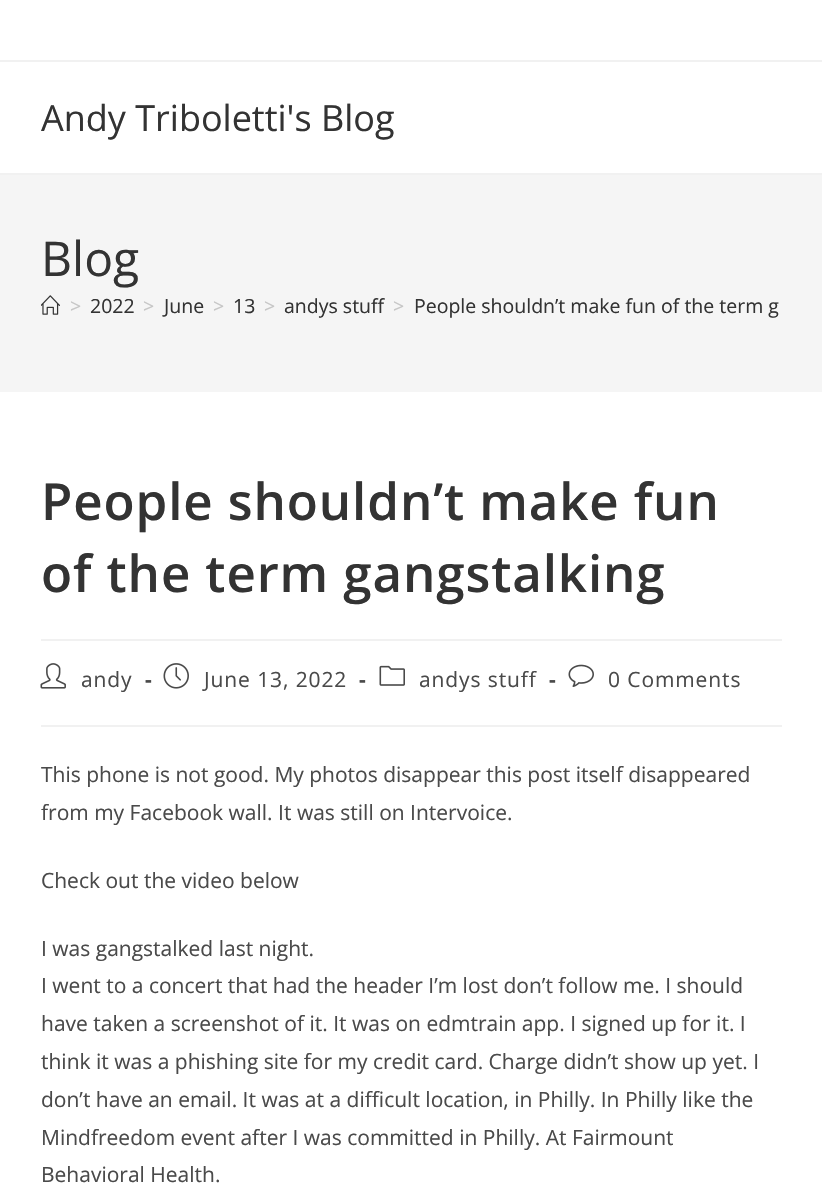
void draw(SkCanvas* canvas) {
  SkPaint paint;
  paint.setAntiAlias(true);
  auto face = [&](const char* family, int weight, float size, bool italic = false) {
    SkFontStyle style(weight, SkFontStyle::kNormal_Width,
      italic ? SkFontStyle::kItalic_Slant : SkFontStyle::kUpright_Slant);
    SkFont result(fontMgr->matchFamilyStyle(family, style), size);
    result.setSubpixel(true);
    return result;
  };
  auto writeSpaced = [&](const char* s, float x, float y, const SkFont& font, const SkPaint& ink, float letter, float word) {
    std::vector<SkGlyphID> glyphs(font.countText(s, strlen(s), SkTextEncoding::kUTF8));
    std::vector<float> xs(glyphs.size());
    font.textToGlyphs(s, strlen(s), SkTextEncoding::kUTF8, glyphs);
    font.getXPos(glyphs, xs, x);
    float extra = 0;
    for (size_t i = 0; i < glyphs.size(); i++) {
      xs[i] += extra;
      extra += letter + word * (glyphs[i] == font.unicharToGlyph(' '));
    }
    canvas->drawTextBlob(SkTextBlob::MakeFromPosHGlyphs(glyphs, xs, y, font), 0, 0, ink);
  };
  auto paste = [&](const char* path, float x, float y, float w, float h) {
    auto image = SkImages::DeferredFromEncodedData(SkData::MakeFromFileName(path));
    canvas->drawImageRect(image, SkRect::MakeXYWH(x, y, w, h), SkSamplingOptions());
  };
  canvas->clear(0xffffffff);
  {
    const struct { float x, y, w, h; SkColor color; } items[] = {
      {0, 60, 822, 2, 0xfff1f1f1},
      {0, 173, 822, 2, 0xfff1f1f1},
      {0, 175, 822, 217, 0xfff5f5f5},
    };
    for (auto [x, y, w, h, color] : items) {
      paint.setColor(color);
      canvas->drawRect(SkRect::MakeXYWH(x, y, w, h), paint);
    }
  }
  paste("img/1.png", 41, 295, 19, 20);
  paint.setColor(0xfff1f1f1);
  canvas->drawRect(SkRect::MakeXYWH(41, 639, 741, 2), paint);
  canvas->drawRect(SkRect::MakeXYWH(41, 725, 741, 2), paint);
  paste("img/2.png", 40, 663, 26, 26);
  paste("img/3.png", 163, 663, 26, 26);
  paste("img/4.png", 379, 665, 26, 21);
  paste("img/5.png", 568, 664, 26, 23);
  auto f0 = face("Open Sans", 400, 36);
  paint.setColor(0xff333333);
  canvas->drawString("Andy Triboletti's Blog", 41, 131, f0, paint);
  auto f1 = face("Open Sans", 400, 48);
  canvas->drawString("Blog", 41, 276, f1, paint);
  auto f2 = face("Open Sans", 400, 19.5f);
  paint.setColor(0xffc6c6c6);
  canvas->drawString(">", 70, 313, f2, paint);
  paint.setColor(0xff333333);
  canvas->drawString("2022", 90, 313, f2, paint);
  paint.setColor(0xffc6c6c6);
  canvas->drawString(">", 143, 313, f2, paint);
  paint.setColor(0xff333333);
  canvas->drawString("June", 164, 313, f2, paint);
  paint.setColor(0xffc6c6c6);
  canvas->drawString(">", 213, 313, f2, paint);
  paint.setColor(0xff333333);
  canvas->drawString("13", 233, 313, f2, paint);
  paint.setColor(0xffc6c6c6);
  canvas->drawString(">", 264, 313, f2, paint);
  paint.setColor(0xff333333);
  canvas->drawString("andys stuff", 284, 313, f2, paint);
  paint.setColor(0xffc6c6c6);
  canvas->drawString(">", 393, 313, f2, paint);
  paint.setColor(0xff333333);
  canvas->drawString("People shouldn’t make fun of the term g", 414, 313, f2, paint);
  auto f3 = face("Open Sans", 600, 51);
  writeSpaced("People shouldn’t make fun", 41, 520, f3, paint, 0.9f, 0);
  writeSpaced("of the term gangstalking", 41, 592, f3, paint, 0.9f, 0);
  auto f4 = face("Open Sans", 400, 21);
  paint.setColor(0xff4a4a4a);
  writeSpaced("andy", 81, 687, f4, paint, 0.9f, 0);
  auto f5 = face("Open Sans", 700, 21);
  writeSpaced("-", 145, 687, f5, paint, 0.9f, 0);
  writeSpaced("June 13, 2022", 204, 687, f4, paint, 0.9f, 0);
  writeSpaced("-", 359, 687, f5, paint, 0.9f, 0);
  writeSpaced("andys stuff", 419, 687, f4, paint, 0.9f, 0);
  writeSpaced("-", 549, 687, f5, paint, 0.9f, 0);
  writeSpaced("0 Comments", 608, 687, f4, paint, 0.9f, 0);
  {
    const struct { const char* s; float x, y; } items[] = {
      {"This phone is not good. My photos disappear this post itself disappeared", 41, 782},
      {"from my Facebook wall. It was still on Intervoice.", 41, 820},
      {"Check out the video below", 41, 888},
      {"I was gangstalked last night.", 41, 956},
      {"I went to a concert that had the header I’m lost don’t follow me. I should", 41, 993},
      {"have taken a screenshot of it. It was on edmtrain app. I signed up for it. I", 41, 1031},
      {"think it was a phishing site for my credit card. Charge didn’t show up yet. I", 41, 1069},
      {"don’t have an email. It was at a difficult location, in Philly. In Philly like the", 41, 1107},
      {"Mindfreedom event after I was committed in Philly. At Fairmount", 41, 1145},
      {"Behavioral Health.", 41, 1182},
    };
    for (auto [s, x, y] : items) {
      canvas->drawString(s, x, y, f4, paint);
    }
  }
}
